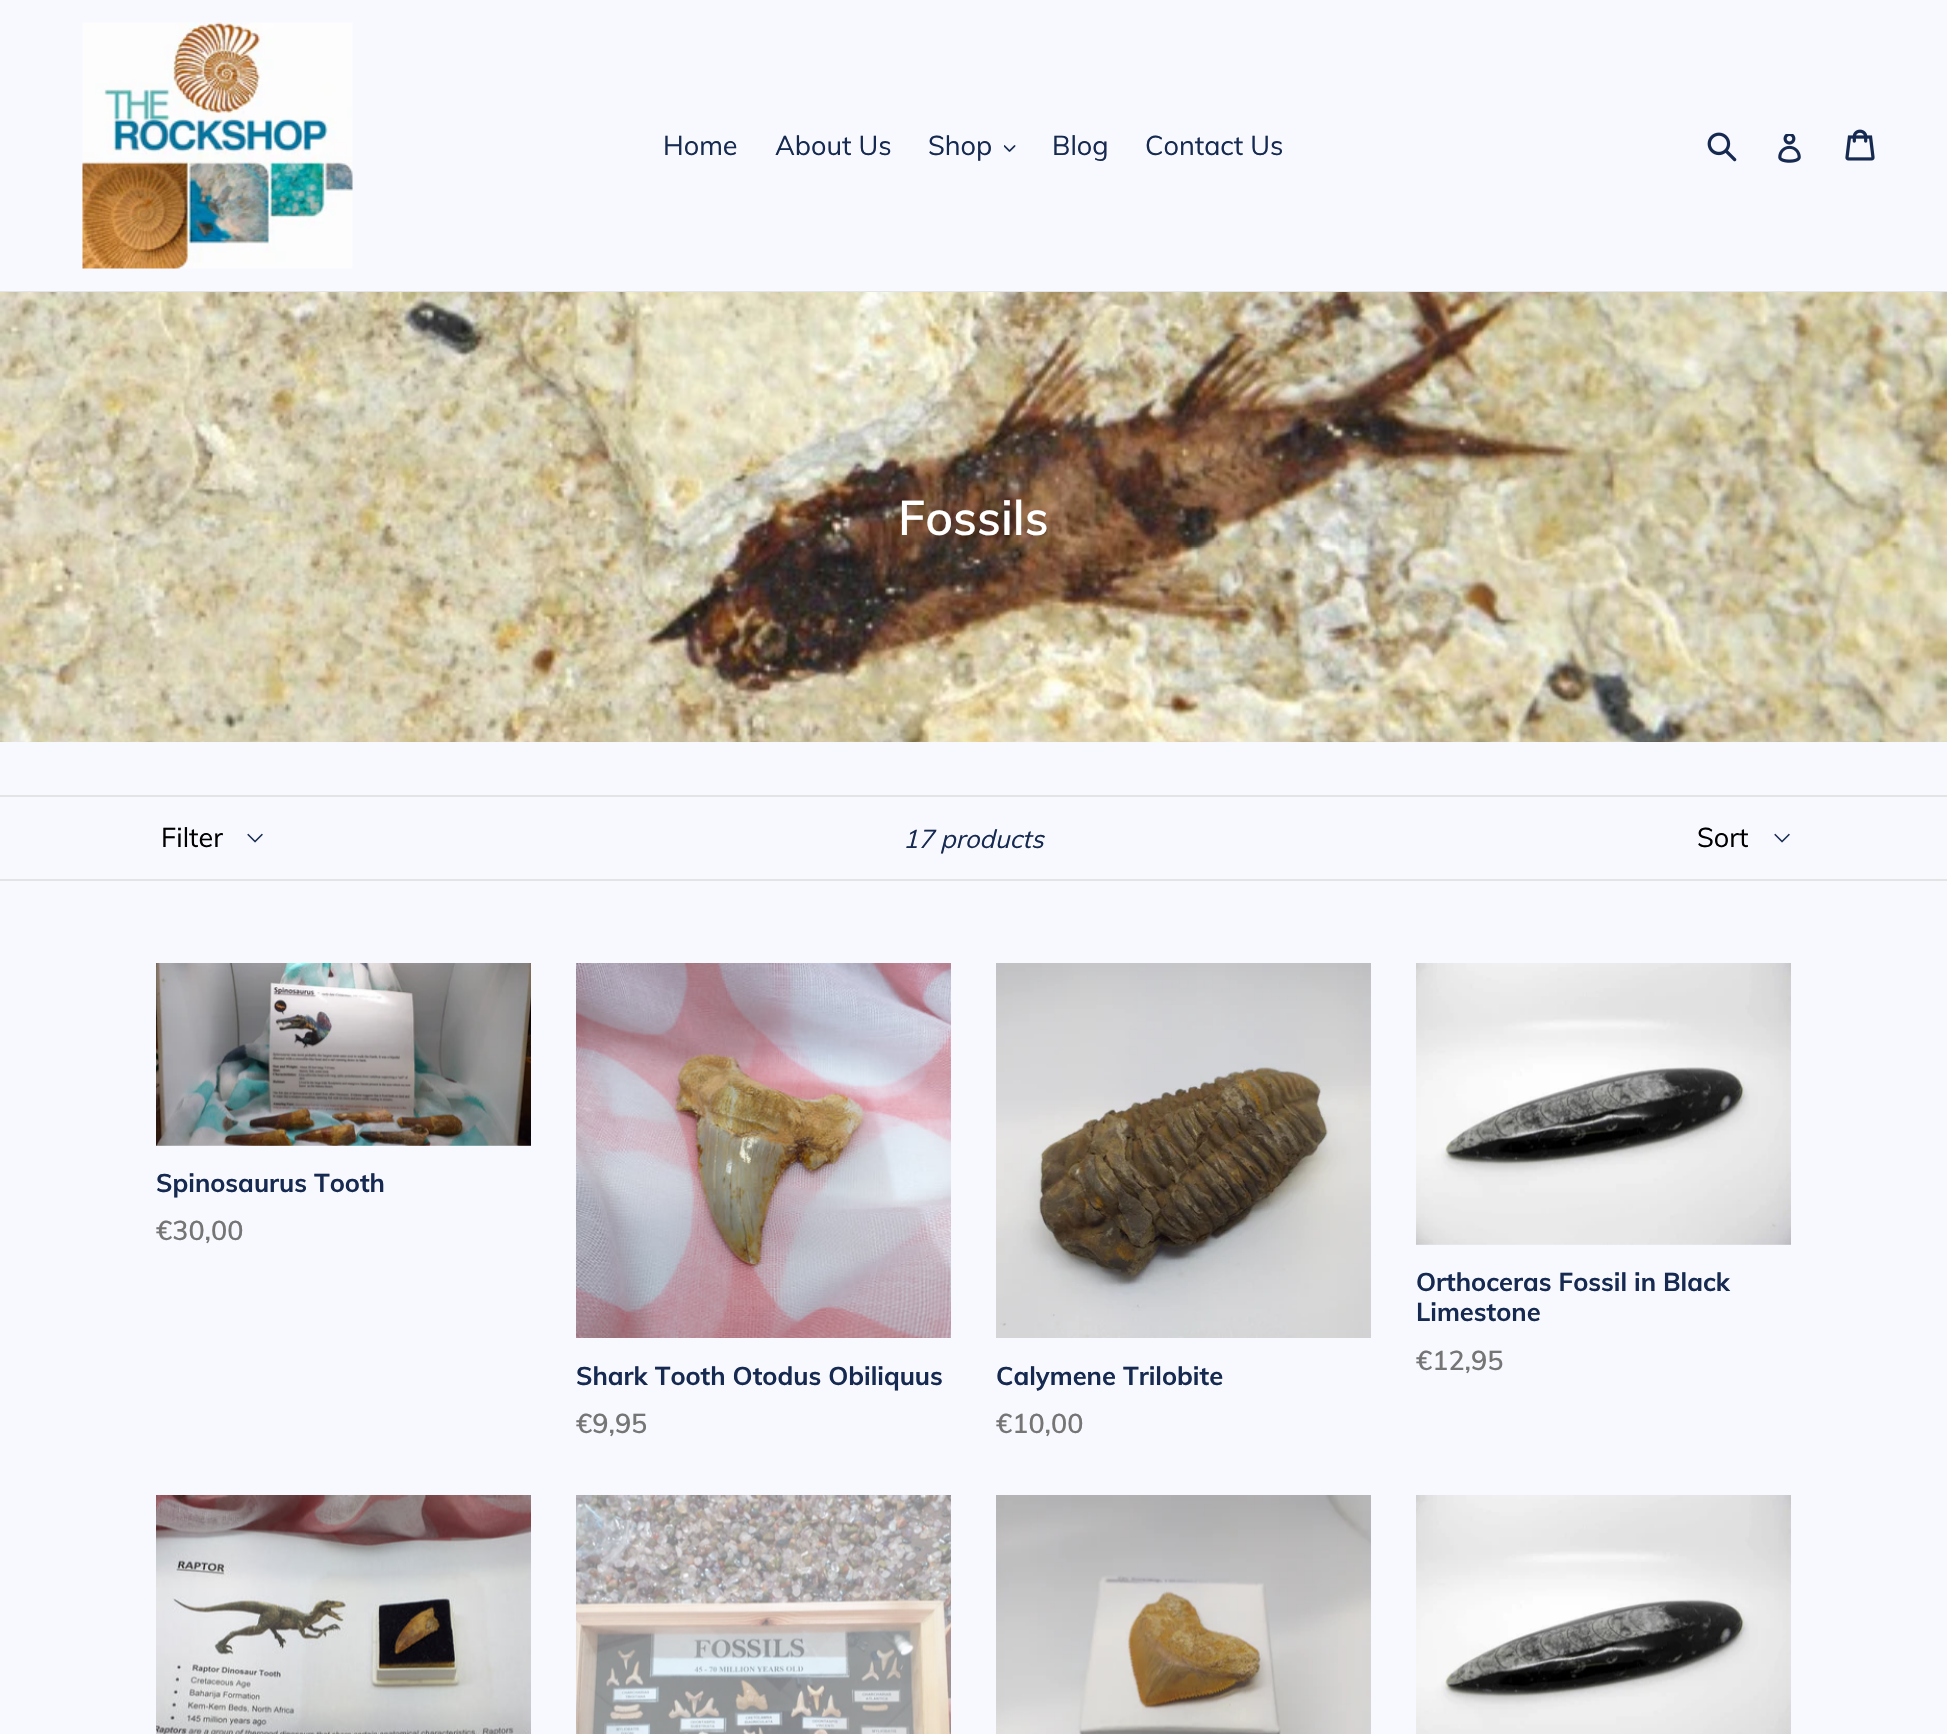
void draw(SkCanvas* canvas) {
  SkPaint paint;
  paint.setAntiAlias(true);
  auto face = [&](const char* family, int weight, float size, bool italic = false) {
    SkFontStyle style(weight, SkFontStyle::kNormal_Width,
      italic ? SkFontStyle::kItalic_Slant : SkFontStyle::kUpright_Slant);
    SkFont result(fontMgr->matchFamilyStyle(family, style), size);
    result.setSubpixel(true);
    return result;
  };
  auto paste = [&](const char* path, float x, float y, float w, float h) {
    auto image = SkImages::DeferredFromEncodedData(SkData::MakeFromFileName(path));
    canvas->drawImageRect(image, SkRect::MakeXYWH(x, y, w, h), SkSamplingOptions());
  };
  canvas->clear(0xfff8f9fe);
  paint.setColor(0xffe4e4e4);
  canvas->drawRect(SkRect::MakeXYWH(0, 291, 1947, 1), paint);
  paste("img/1.png", 82, 22, 271, 247);
  paste("img/2.png", 1004, 145, 12, 7);
  paste("img/3.png", 1707, 132, 30, 30);
  paste("img/4.png", 1778, 134, 23, 29);
  paste("img/5.png", 1845, 129, 30, 32);
  paste("img/6.png", 0, 292, 1947, 450);
  canvas->drawRect(SkRect::MakeXYWH(0, 795, 1947, 2), paint);
  canvas->drawRect(SkRect::MakeXYWH(0, 879, 1947, 2), paint);
  paste("img/7.png", 247, 833, 16, 10);
  paste("img/7.png", 1774, 833, 16, 10);
  paste("img/8.png", 156, 963, 375, 183);
  paste("img/9.png", 1416, 963, 375, 282);
  paste("img/10.png", 576, 963, 375, 375);
  paste("img/11.png", 996, 963, 375, 375);
  paste("img/12.png", 156, 1495, 375, 239);
  paste("img/13.png", 576, 1495, 375, 239);
  paste("img/14.png", 996, 1495, 375, 239);
  paste("img/15.png", 1416, 1495, 375, 239);
  auto f0 = face("Muli", 400, 27);
  paint.setColor(0xff162950);
  {
    const struct { const char* s; float x, y; } items[] = {
      {"Home", 663, 155},
      {"About Us", 775, 155},
      {"Shop", 928, 155},
      {"Blog", 1052, 155},
      {"Contact Us", 1145, 155},
    };
    for (auto [s, x, y] : items) {
      canvas->drawString(s, x, y, f0, paint);
    }
  }
  auto f1 = face("Muli", 600, 48);
  paint.setColor(0xffffffff);
  canvas->drawString("Fossils", 898, 535, f1, paint);
  paint.setColor(0xff000000);
  canvas->drawString("Filter", 161, 847, f0, paint);
  auto f2 = face("Muli", 400, 25.5f, true);
  paint.setColor(0xff162950);
  canvas->drawString("17 products", 903, 848, f2, paint);
  paint.setColor(0xff000000);
  canvas->drawString("Sort", 1697, 847, f0, paint);
  auto f3 = face("Muli", 700, 25.5f);
  paint.setColor(0xff162950);
  canvas->drawString("Spinosaurus Tooth", 156, 1192, f3, paint);
  auto f4 = face("Muli", 600, 27);
  paint.setColor(0xff757575);
  canvas->drawString("€30,00", 156, 1240, f4, paint);
  paint.setColor(0xff162950);
  canvas->drawString("Orthoceras Fossil in Black", 1416, 1291, f3, paint);
  canvas->drawString("Limestone", 1416, 1321, f3, paint);
  paint.setColor(0xff757575);
  canvas->drawString("€12,95", 1416, 1370, f4, paint);
  paint.setColor(0xff162950);
  canvas->drawString("Shark Tooth Otodus Obiliquus", 576, 1385, f3, paint);
  paint.setColor(0xff757575);
  canvas->drawString("€9,95", 576, 1433, f4, paint);
  paint.setColor(0xff162950);
  canvas->drawString("Calymene Trilobite", 996, 1385, f3, paint);
  paint.setColor(0xff757575);
  canvas->drawString("€10,00", 996, 1433, f4, paint);
}
